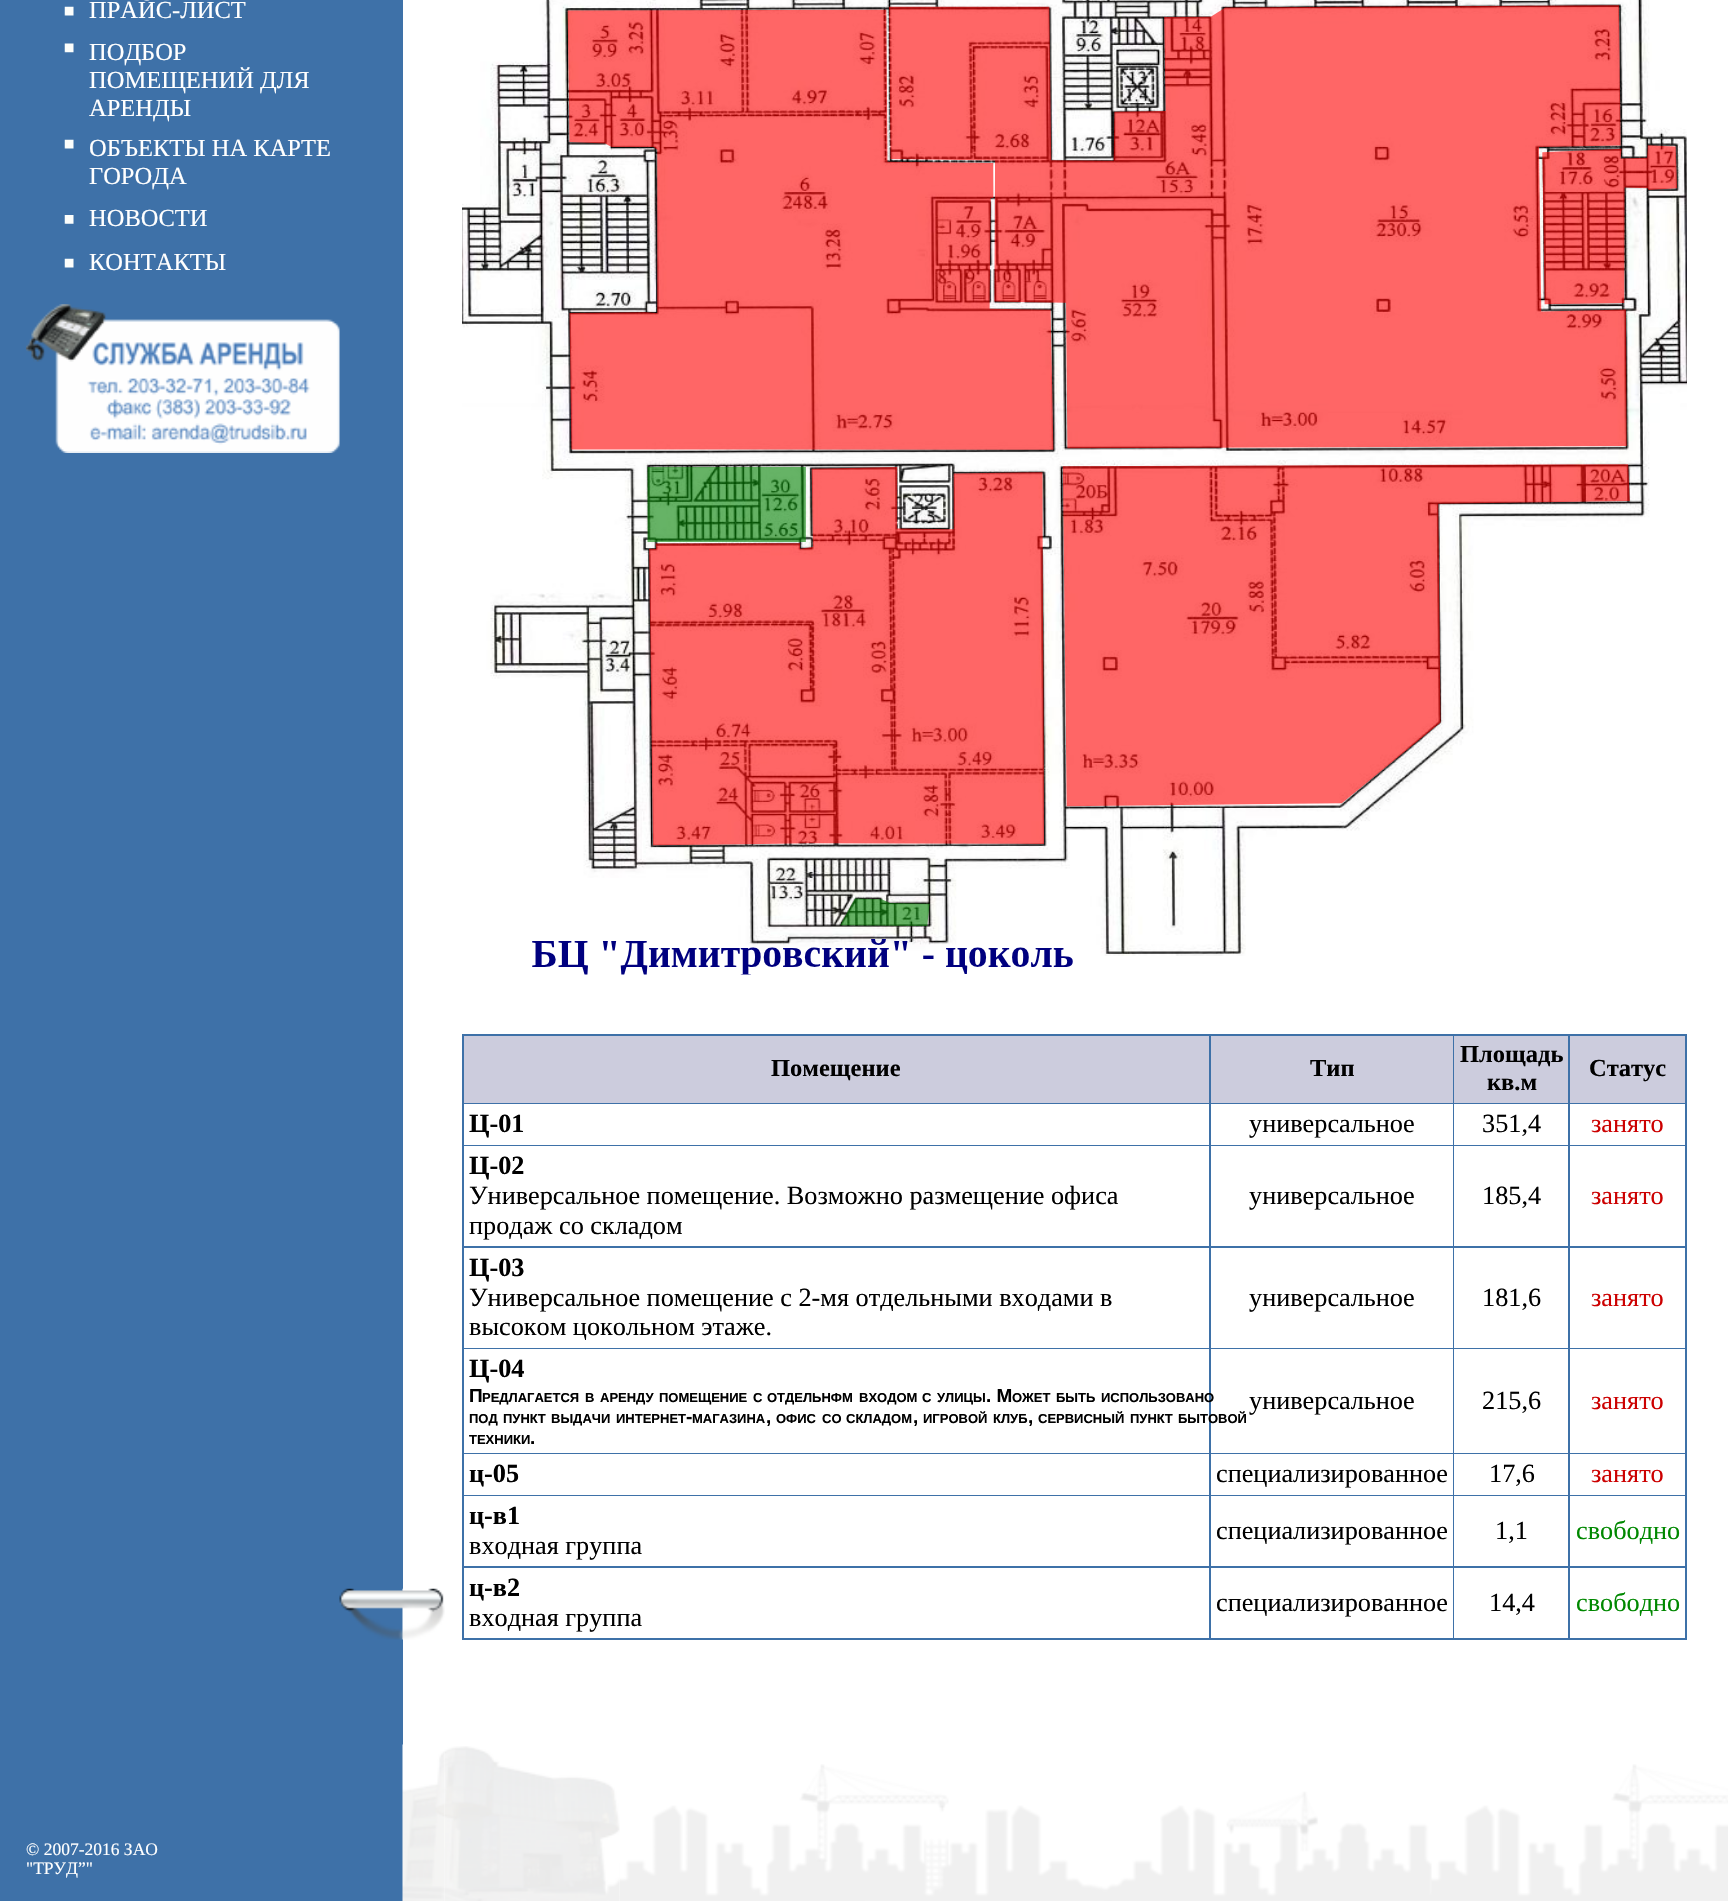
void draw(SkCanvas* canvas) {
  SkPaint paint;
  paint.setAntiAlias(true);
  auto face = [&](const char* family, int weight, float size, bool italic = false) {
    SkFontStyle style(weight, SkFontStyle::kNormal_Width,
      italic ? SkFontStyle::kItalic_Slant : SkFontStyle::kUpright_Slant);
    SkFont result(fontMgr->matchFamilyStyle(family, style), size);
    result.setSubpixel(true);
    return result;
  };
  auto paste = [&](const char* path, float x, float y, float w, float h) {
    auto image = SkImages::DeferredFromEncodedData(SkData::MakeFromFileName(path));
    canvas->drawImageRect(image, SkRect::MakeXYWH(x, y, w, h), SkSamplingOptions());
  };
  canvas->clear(0xffffffff);
  paint.setColor(0xff3e71a8);
  canvas->drawRect(SkRect::MakeXYWH(0, 0, 340, 1640), paint);
  paste("img/1.png", 64, 6, 10, 10);
  paste("img/2.png", 64, 43, 10, 10);
  paste("img/1.png", 64, 139, 10, 10);
  paste("img/3.png", 64, 215, 10, 9);
  paste("img/1.png", 64, 258, 10, 10);
  paste("img/4.png", 26, 304, 314, 149);
  canvas->drawRect(SkRect::MakeXYWH(340, 0, 63, 1589), paint);
  canvas->drawRect(SkRect::MakeXYWH(340, 1639, 63, 262), paint);
  paste("img/5.png", 339, 1588, 106, 52);
  paste("img/6.png", 462, 0, 1225, 975);
  {
    const struct { float x, y, w, h; SkColor color; } items[] = {
      {462, 1034, 1225, 606, 0xff3e71a8},
      {464, 1036, 745, 67, 0xffccccdd},
      {1211, 1036, 242, 67, 0xffccccdd},
      {1454, 1036, 114, 67, 0xffccccdd},
      {1570, 1036, 115, 67, 0xffccccdd},
      {464, 1104, 745, 41, 0xffffffff},
      {1211, 1104, 242, 41, 0xffffffff},
      {1454, 1104, 114, 41, 0xffffffff},
      {1570, 1104, 115, 41, 0xffffffff},
      {464, 1146, 745, 100, 0xffffffff},
      {1211, 1146, 242, 100, 0xffffffff},
      {1454, 1146, 114, 100, 0xffffffff},
      {1570, 1146, 115, 100, 0xffffffff},
      {464, 1248, 745, 100, 0xffffffff},
      {1211, 1248, 242, 100, 0xffffffff},
      {1454, 1248, 114, 100, 0xffffffff},
      {1570, 1248, 115, 100, 0xffffffff},
      {464, 1349, 745, 104, 0xffffffff},
      {1211, 1349, 242, 104, 0xffffffff},
      {1454, 1349, 114, 104, 0xffffffff},
      {1570, 1349, 115, 104, 0xffffffff},
      {464, 1454, 745, 41, 0xffffffff},
      {1211, 1454, 242, 41, 0xffffffff},
      {1454, 1454, 114, 41, 0xffffffff},
      {1570, 1454, 115, 41, 0xffffffff},
      {464, 1496, 745, 70, 0xffffffff},
      {1211, 1496, 242, 70, 0xffffffff},
      {1454, 1496, 114, 70, 0xffffffff},
      {1570, 1496, 115, 70, 0xffffffff},
      {464, 1568, 745, 70, 0xffffffff},
      {1211, 1568, 242, 70, 0xffffffff},
      {1454, 1568, 114, 70, 0xffffffff},
      {1570, 1568, 115, 70, 0xffffffff},
      {0, 1640, 340, 261, 0xff3e71a8},
    };
    for (auto [x, y, w, h, color] : items) {
      paint.setColor(color);
      canvas->drawRect(SkRect::MakeXYWH(x, y, w, h), paint);
    }
  }
  paste("img/7.png", 402, 1744, 43, 157);
  paste("img/9.png", 619, 1764, 1109, 137);
  paste("img/8.png", 444, 1746, 176, 155);
  auto f0 = face("Liberation Serif", 400, 24.5f);
  paint.setColor(0xffffffff);
  {
    const struct { const char* s; float x, y; } items[] = {
      {"ПРАЙС-ЛИСТ", 89, 18},
      {"ПОДБОР", 89, 60},
      {"ПОМЕЩЕНИЙ ДЛЯ", 89, 88},
      {"АРЕНДЫ", 89, 116},
      {"ОБЪЕКТЫ НА КАРТЕ", 89, 156},
      {"ГОРОДА", 89, 184},
      {"НОВОСТИ", 89, 226},
      {"КОНТАКТЫ", 89, 270},
    };
    for (auto [s, x, y] : items) {
      canvas->drawString(s, x, y, f0, paint);
    }
  }
  auto f1 = face("Liberation Serif", 700, 24.5f);
  paint.setColor(0xff000000);
  {
    const struct { const char* s; float x, y; } items[] = {
      {"Помещение", 771, 1076},
      {"Тип", 1310, 1076},
      {"Площадь", 1460, 1062},
      {"кв.м", 1487, 1090},
      {"Статус", 1589, 1076},
    };
    for (auto [s, x, y] : items) {
      canvas->drawString(s, x, y, f1, paint);
    }
  }
  auto f2 = face("Liberation Serif", 700, 26.25f);
  canvas->drawString("Ц-01", 469, 1132, f2, paint);
  auto f3 = face("Liberation Serif", 400, 26.25f);
  canvas->drawString("универсальное", 1249, 1132, f3, paint);
  canvas->drawString("351,4", 1482, 1132, f3, paint);
  paint.setColor(0xffcc0000);
  canvas->drawString("занято", 1591, 1132, f3, paint);
  paint.setColor(0xff000000);
  canvas->drawString("Ц-02", 469, 1174, f2, paint);
  {
    const struct { const char* s; float x, y; } items[] = {
      {"Универсальное помещение. Возможно размещение офиса", 469, 1204},
      {"продаж со складом", 469, 1234},
      {"универсальное", 1249, 1204},
      {"185,4", 1482, 1204},
    };
    for (auto [s, x, y] : items) {
      canvas->drawString(s, x, y, f3, paint);
    }
  }
  paint.setColor(0xffcc0000);
  canvas->drawString("занято", 1591, 1204, f3, paint);
  paint.setColor(0xff000000);
  canvas->drawString("Ц-03", 469, 1276, f2, paint);
  {
    const struct { const char* s; float x, y; } items[] = {
      {"Универсальное помещение с 2-мя отдельными входами в", 469, 1306},
      {"высоком цокольном этаже.", 469, 1335},
      {"универсальное", 1249, 1306},
      {"181,6", 1482, 1306},
    };
    for (auto [s, x, y] : items) {
      canvas->drawString(s, x, y, f3, paint);
    }
  }
  paint.setColor(0xffcc0000);
  canvas->drawString("занято", 1591, 1306, f3, paint);
  paint.setColor(0xff000000);
  canvas->drawString("Ц-04", 469, 1377, f2, paint);
  auto f4 = face("Liberation Sans", 700, 19);
  canvas->drawString("П", 469, 1402, f4, paint);
  auto f5 = face("Liberation Sans", 700, 13);
  {
    const struct { const char* s; float x, y; } items[] = {
      {"РЕДЛАГАЕТСЯ", 482, 1402},
      {"В", 585, 1402},
      {"АРЕНДУ", 600, 1402},
      {"ПОМЕЩЕНИЕ", 659, 1402},
      {"С", 753, 1402},
      {"ОТДЕЛЬНФМ", 767, 1402},
      {"ВХОДОМ", 859, 1402},
      {"С", 922, 1402},
      {"УЛИЦЫ", 937, 1402},
    };
    for (auto [s, x, y] : items) {
      canvas->drawString(s, x, y, f5, paint);
    }
  }
  canvas->drawString(". М", 986, 1402, f4, paint);
  {
    const struct { const char* s; float x, y; } items[] = {
      {"ОЖЕТ", 1012, 1402},
      {"БЫТЬ", 1056, 1402},
      {"ИСПОЛЬЗОВАНО", 1101, 1402},
      {"ПОД", 469, 1423},
      {"ПУНКТ", 503, 1423},
      {"ВЫДАЧИ", 551, 1423},
      {"ИНТЕРНЕТ", 616, 1423},
    };
    for (auto [s, x, y] : items) {
      canvas->drawString(s, x, y, f5, paint);
    }
  }
  canvas->drawString("-", 686, 1423, f4, paint);
  {
    const struct { const char* s; float x, y; } items[] = {
      {"МАГАЗИНА", 692, 1423},
      {"ОФИС", 776, 1423},
      {"СО", 822, 1423},
      {"СКЛАДОМ", 846, 1423},
      {"ИГРОВОЙ", 923, 1423},
      {"КЛУБ", 993, 1423},
      {"СЕРВИСНЫЙ", 1038, 1423},
      {"ПУНКТ", 1130, 1423},
      {"БЫТОВОЙ", 1178, 1423},
    };
    for (auto [s, x, y] : items) {
      canvas->drawString(s, x, y, f5, paint);
    }
  }
  {
    const struct { const char* s; float x, y; } items[] = {
      {",", 766, 1423},
      {",", 913, 1423},
      {",", 1028, 1423},
    };
    for (auto [s, x, y] : items) {
      canvas->drawString(s, x, y, f4, paint);
    }
  }
  canvas->drawString("ТЕХНИКИ", 469, 1444, f5, paint);
  canvas->drawString(".", 530, 1444, f4, paint);
  canvas->drawString("универсальное", 1249, 1409, f3, paint);
  canvas->drawString("215,6", 1482, 1409, f3, paint);
  paint.setColor(0xffcc0000);
  canvas->drawString("занято", 1591, 1409, f3, paint);
  paint.setColor(0xff000000);
  canvas->drawString("ц-05", 469, 1482, f2, paint);
  canvas->drawString("специализированное", 1216, 1482, f3, paint);
  canvas->drawString("17,6", 1489, 1482, f3, paint);
  paint.setColor(0xffcc0000);
  canvas->drawString("занято", 1591, 1482, f3, paint);
  paint.setColor(0xff000000);
  canvas->drawString("ц-в1", 469, 1524, f2, paint);
  {
    const struct { const char* s; float x, y; } items[] = {
      {"входная группа", 469, 1554},
      {"специализированное", 1216, 1539},
      {"1,1", 1495, 1539},
    };
    for (auto [s, x, y] : items) {
      canvas->drawString(s, x, y, f3, paint);
    }
  }
  paint.setColor(0xff008800);
  canvas->drawString("свободно", 1576, 1539, f3, paint);
  paint.setColor(0xff000000);
  canvas->drawString("ц-в2", 469, 1596, f2, paint);
  {
    const struct { const char* s; float x, y; } items[] = {
      {"входная группа", 469, 1626},
      {"специализированное", 1216, 1611},
      {"14,4", 1489, 1611},
    };
    for (auto [s, x, y] : items) {
      canvas->drawString(s, x, y, f3, paint);
    }
  }
  paint.setColor(0xff008800);
  canvas->drawString("свободно", 1576, 1611, f3, paint);
  auto f6 = face("Liberation Serif", 400, 17.5f);
  paint.setColor(0xffffffff);
  canvas->drawString("© 2007-2016 ЗАО", 26, 1855, f6, paint);
  canvas->drawString("\"ТРУД”\"", 26, 1874, f6, paint);
}
